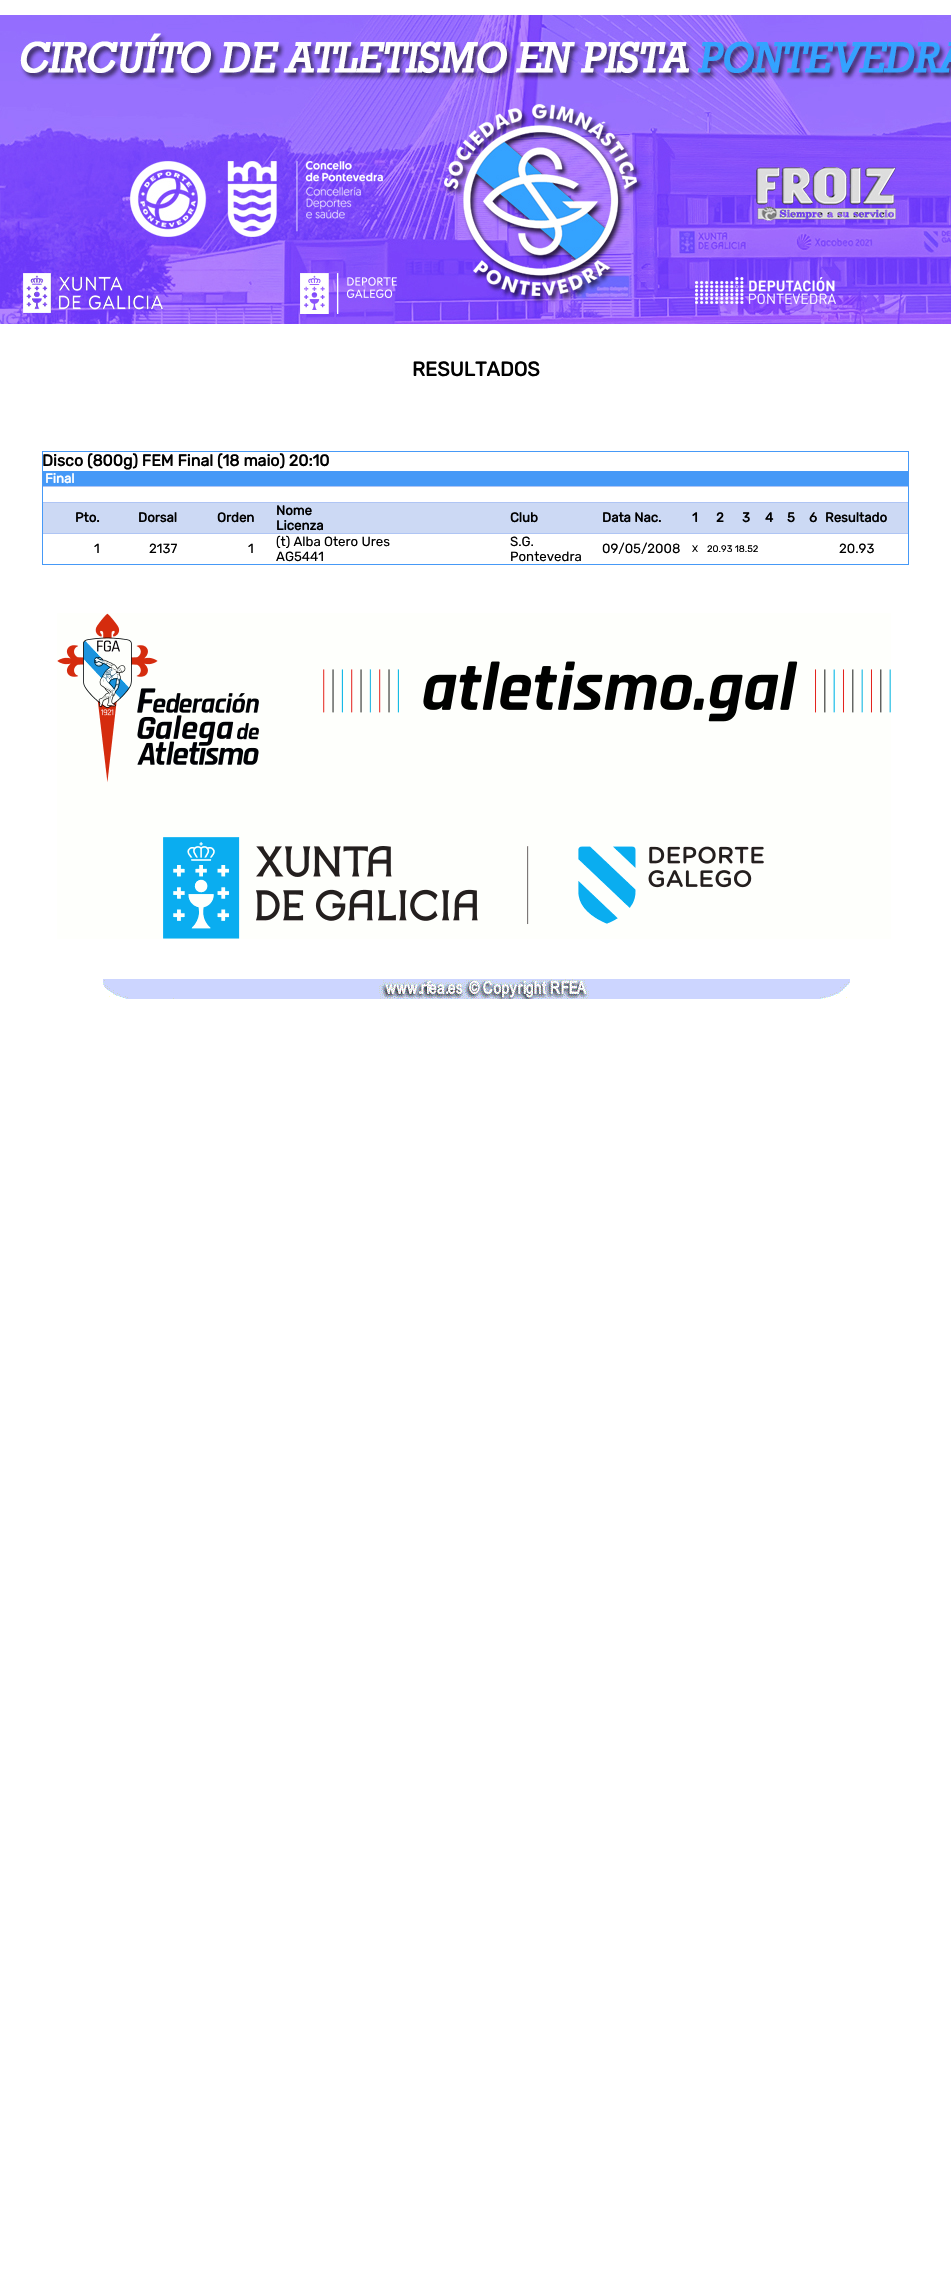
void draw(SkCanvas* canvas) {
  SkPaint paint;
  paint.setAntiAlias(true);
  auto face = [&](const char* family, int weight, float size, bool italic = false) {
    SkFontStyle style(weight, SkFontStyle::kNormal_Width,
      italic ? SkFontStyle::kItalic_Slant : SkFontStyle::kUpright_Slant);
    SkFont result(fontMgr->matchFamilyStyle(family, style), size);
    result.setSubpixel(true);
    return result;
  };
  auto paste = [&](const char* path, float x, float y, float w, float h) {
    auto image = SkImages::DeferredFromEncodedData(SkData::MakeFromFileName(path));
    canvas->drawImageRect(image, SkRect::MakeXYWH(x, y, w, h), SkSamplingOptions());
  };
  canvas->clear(0xffffffff);
  paste("img/1.png", 0, 15, 951, 309);
  paint.setStroke(true);
  paint.setStrokeWidth(1);
  paint.setColor(0xff4699f7);
  canvas->drawRect(SkRect::MakeXYWH(42.5f, 451.5f, 866, 113), paint);
  paint.setStroke(false);
  {
    const struct { float x, y, w, h; SkColor color; } items[] = {
      {43, 471, 865, 15, 0xff4699f7},
      {43, 486, 865, 1, 0xffafc5f4},
      {43, 503, 865, 30, 0xffccd9f4},
      {43, 502, 865, 1, 0xffafc5f4},
      {43, 533, 865, 1, 0xffafc5f4},
    };
    for (auto [x, y, w, h, color] : items) {
      paint.setColor(color);
      canvas->drawRect(SkRect::MakeXYWH(x, y, w, h), paint);
    }
  }
  paste("img/2.png", 57, 613, 834, 326);
  paste("img/3.png", 103, 979, 747, 20);
  auto f0 = face("Rubik", 700, 20);
  paint.setColor(0xff000000);
  canvas->drawString("RESULTADOS", 412, 376, f0, paint);
  auto f1 = face("Rubik", 700, 16);
  canvas->drawString("Disco (800g) FEM Final (18 maio) 20:10", 42, 466, f1, paint);
  auto f2 = face("Rubik", 700, 13.25f);
  paint.setColor(0xffffffff);
  canvas->drawString("Final", 45, 483, f2, paint);
  paint.setColor(0xff000000);
  {
    const struct { const char* s; float x, y; } items[] = {
      {"Pto.", 75, 522},
      {"Dorsal", 138, 522},
      {"Orden", 217, 522},
      {"Nome", 276, 515},
      {"Licenza", 276, 530},
      {"Club", 510, 522},
      {"Data Nac.", 602, 522},
      {"1", 692, 522},
      {"2", 716, 522},
      {"3", 742, 522},
      {"4", 765, 522},
      {"5", 787, 522},
      {"6", 809, 522},
      {"Resultado", 825, 522},
    };
    for (auto [s, x, y] : items) {
      canvas->drawString(s, x, y, f2, paint);
    }
  }
  auto f3 = face("Rubik", 300, 13.25f);
  {
    const struct { const char* s; float x, y; } items[] = {
      {"1", 94, 553},
      {"2137", 149, 553},
      {"1", 248, 553},
      {"(t) Alba Otero Ures", 276, 546},
      {"AG5441", 276, 561},
      {"S.G.", 510, 546},
      {"Pontevedra", 510, 561},
      {"09/05/2008", 602, 553},
    };
    for (auto [s, x, y] : items) {
      canvas->drawString(s, x, y, f3, paint);
    }
  }
  auto f4 = face("Rubik", 300, 9.5f);
  canvas->drawString("X", 692, 552, f4, paint);
  canvas->drawString("20.93 18.52", 707, 552, f4, paint);
  canvas->drawString("20.93", 839, 553, f3, paint);
}
